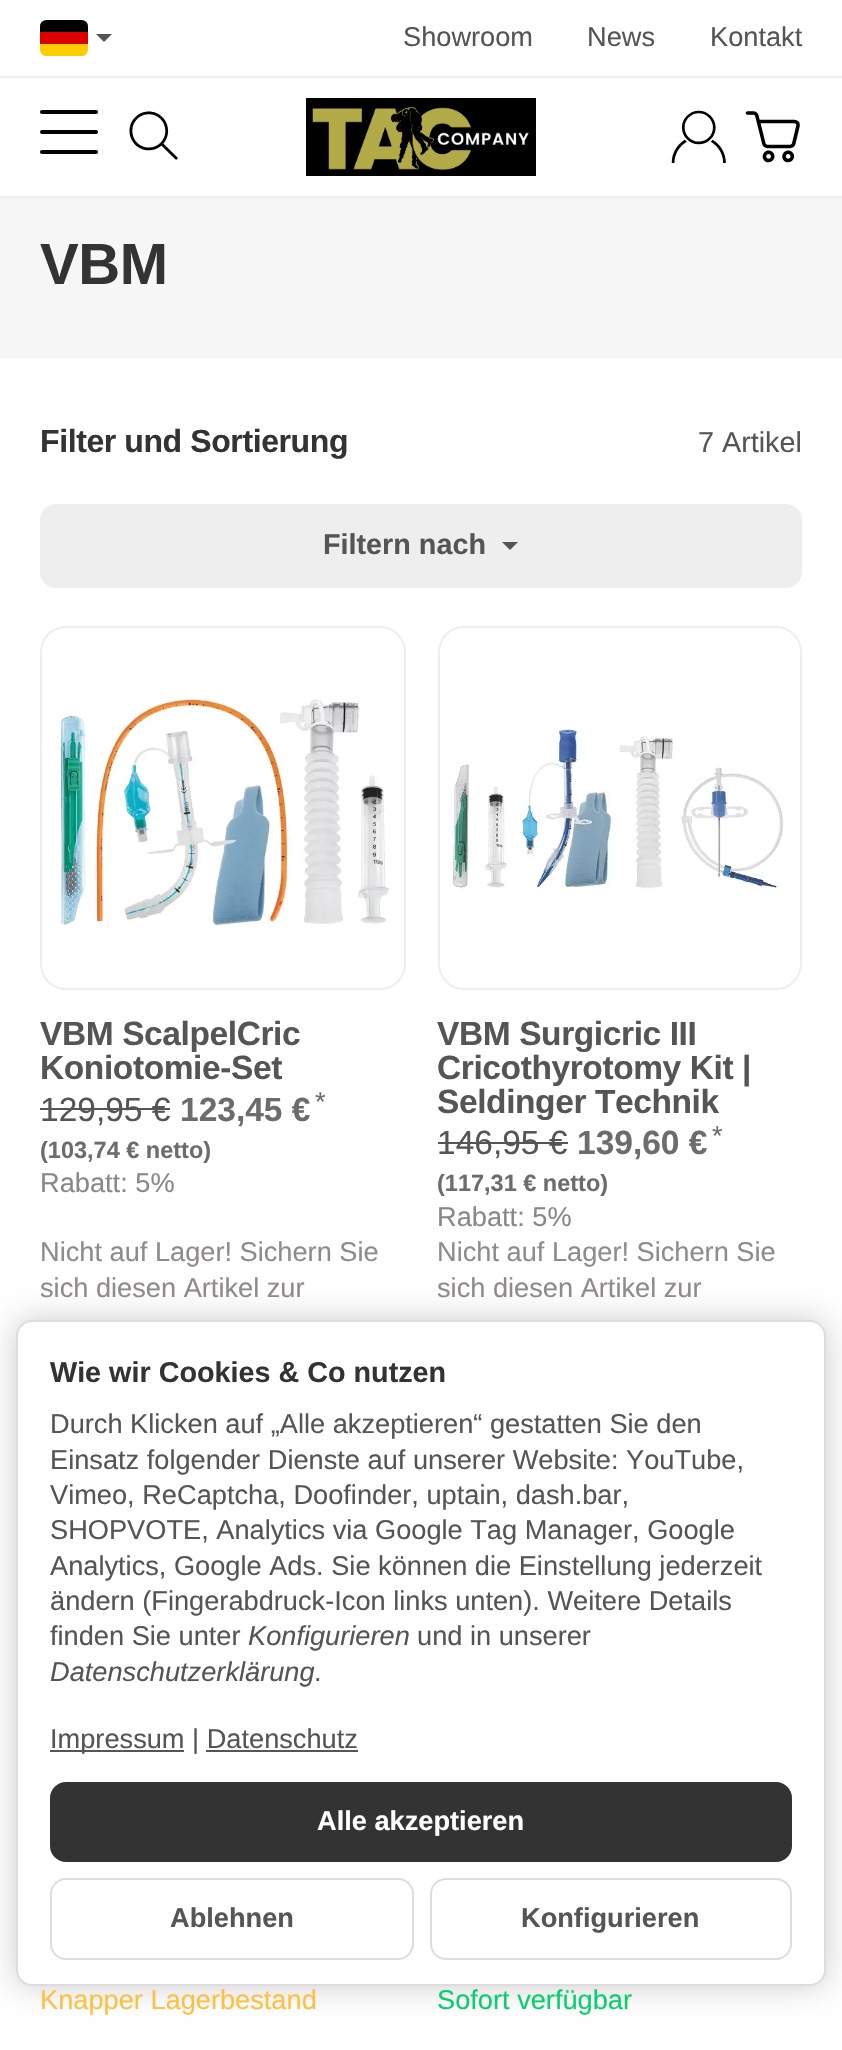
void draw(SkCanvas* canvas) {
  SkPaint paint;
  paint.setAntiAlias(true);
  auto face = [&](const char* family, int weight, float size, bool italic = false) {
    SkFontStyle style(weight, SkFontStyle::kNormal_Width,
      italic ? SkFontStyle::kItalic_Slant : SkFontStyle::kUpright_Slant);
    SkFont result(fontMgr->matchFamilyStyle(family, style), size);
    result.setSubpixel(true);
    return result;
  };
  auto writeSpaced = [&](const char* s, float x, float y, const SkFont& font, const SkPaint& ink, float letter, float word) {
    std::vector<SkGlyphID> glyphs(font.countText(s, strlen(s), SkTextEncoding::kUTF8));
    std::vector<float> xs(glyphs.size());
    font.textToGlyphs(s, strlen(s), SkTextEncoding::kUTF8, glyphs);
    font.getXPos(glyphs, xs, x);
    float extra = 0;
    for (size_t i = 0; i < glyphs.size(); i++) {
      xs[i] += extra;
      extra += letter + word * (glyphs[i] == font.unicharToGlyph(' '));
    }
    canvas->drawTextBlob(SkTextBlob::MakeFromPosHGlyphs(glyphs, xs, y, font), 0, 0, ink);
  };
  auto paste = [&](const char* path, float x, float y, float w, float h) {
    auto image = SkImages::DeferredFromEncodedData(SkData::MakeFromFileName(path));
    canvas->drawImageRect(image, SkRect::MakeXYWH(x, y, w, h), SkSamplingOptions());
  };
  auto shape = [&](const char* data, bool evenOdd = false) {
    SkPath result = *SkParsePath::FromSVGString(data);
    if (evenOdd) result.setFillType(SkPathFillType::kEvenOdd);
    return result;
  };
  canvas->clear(0xffffffff);
  paint.setColor(0xffeeeeee);
  canvas->drawRect(SkRect::MakeXYWH(0, 76, 842, 2), paint);
  paste("img/1.png", 40, 20, 48, 36);
  paint.setColor(0xff555555);
  canvas->drawPath(shape("M96 34H112L104 42Z"), paint);
  paint.setColor(0xffeeeeee);
  canvas->drawRect(SkRect::MakeXYWH(0, 196, 842, 2), paint);
  paint.setColor(0xff000000);
  canvas->drawRoundRect(SkRect::MakeXYWH(40, 110, 58, 4), 2, 2, paint);
  canvas->drawRoundRect(SkRect::MakeXYWH(40, 130, 58, 4), 2, 2, paint);
  canvas->drawRoundRect(SkRect::MakeXYWH(40, 150, 58, 4), 2, 2, paint);
  paste("img/2.png", 129, 111, 49, 49);
  paste("img/3.png", 306, 98, 230, 78);
  paste("img/4.png", 671, 110, 55, 53);
  paste("img/5.png", 745, 111, 55, 52);
  paint.setColor(0xfff6f6f6);
  canvas->drawRect(SkRect::MakeXYWH(0, 198, 842, 160), paint);
  paint.setColor(0xffeeeeee);
  canvas->drawRoundRect(SkRect::MakeXYWH(41, 505, 760, 82), 15, 15, paint);
  paint.setStroke(true);
  paint.setStrokeWidth(2);
  canvas->drawRoundRect(SkRect::MakeXYWH(41, 505, 760, 82), 15, 15, paint);
  paint.setStroke(false);
  paint.setColor(0xff555555);
  canvas->drawPath(shape("M502 542H518L510 550Z"), paint);
  paint.setStroke(true);
  paint.setColor(0xffeeeeee);
  canvas->drawRoundRect(SkRect::MakeXYWH(41, 627, 364, 362), 25, 25, paint);
  paste("img/6.png", 58, 696, 332, 230);
  paint.setStroke(false);
  paint.setColor(0xff555555);
  canvas->drawRect(SkRect::MakeXYWH(40, 1108, 130, 2), paint);
  paint.setStroke(true);
  paint.setColor(0xffeeeeee);
  canvas->drawRoundRect(SkRect::MakeXYWH(439, 627, 362, 362), 25, 25, paint);
  paste("img/7.png", 452, 729, 331, 161);
  paint.setStroke(false);
  paint.setColor(0xff555555);
  canvas->drawRect(SkRect::MakeXYWH(438, 1142, 130, 2), paint);
  paint.setColor(0x33000000);
  paint.setMaskFilter(SkMaskFilter::MakeBlur(kNormal_SkBlurStyle, 16));
  canvas->drawRoundRect(SkRect::MakeXYWH(16, 1320, 810, 666), 16, 16, paint);
  paint.setMaskFilter(nullptr);
  paint.setColor(0xffffffff);
  canvas->drawRoundRect(SkRect::MakeXYWH(17, 1321, 808, 664), 15, 15, paint);
  paint.setStroke(true);
  paint.setColor(0xffdddddd);
  canvas->drawRoundRect(SkRect::MakeXYWH(17, 1321, 808, 664), 15, 15, paint);
  paint.setStroke(false);
  paint.setColor(0xff555555);
  canvas->drawRect(SkRect::MakeXYWH(50, 1750, 134, 2), paint);
  canvas->drawRect(SkRect::MakeXYWH(206, 1750, 152, 2), paint);
  paint.setColor(0xff333333);
  canvas->drawRoundRect(SkRect::MakeXYWH(51, 1783, 740, 78), 15, 15, paint);
  paint.setStroke(true);
  canvas->drawRoundRect(SkRect::MakeXYWH(51, 1783, 740, 78), 15, 15, paint);
  paint.setColor(0xffdddddd);
  canvas->drawRoundRect(SkRect::MakeXYWH(51, 1879, 362, 80), 15, 15, paint);
  canvas->drawRoundRect(SkRect::MakeXYWH(431, 1879, 360, 80), 15, 15, paint);
  auto f0 = face("Liberation Sans", 400, 27.2f);
  paint.setStroke(false);
  paint.setColor(0xff555555);
  {
    const struct { const char* s; float x, y; } items[] = {
      {"Showroom", 403, 46},
      {"News", 587, 46},
      {"Kontakt", 710, 46},
    };
    for (auto [s, x, y] : items) {
      canvas->drawString(s, x, y, f0, paint);
    }
  }
  auto f1 = face("Liberation Sans", 700, 58);
  paint.setColor(0xff333333);
  writeSpaced("VBM", 40, 284, f1, paint, -0.4f, 0);
  auto f2 = face("Liberation Sans", 700, 32);
  writeSpaced("Filter und Sortierung", 40, 452, f2, paint, -0.4f, 0);
  auto f3 = face("Liberation Sans", 400, 28.75f);
  paint.setColor(0xff555555);
  canvas->drawString("7 Artikel", 698, 452, f3, paint);
  auto f4 = face("Liberation Sans", 700, 28.75f);
  canvas->drawString("Filtern nach", 323, 554, f4, paint);
  auto f5 = face("Liberation Sans", 700, 33.5f);
  writeSpaced("VBM ScalpelCric", 40, 1045, f5, paint, -0.4f, 0);
  writeSpaced("Koniotomie-Set", 40, 1079, f5, paint, -0.4f, 0);
  auto f6 = face("Liberation Sans", 400, 33.5f);
  canvas->drawString("129,95 €", 40, 1121, f6, paint);
  paint.setColor(0xff6d6c6c);
  canvas->drawString("123,45 €", 180, 1121, f5, paint);
  canvas->drawString("*", 315, 1111, f0, paint);
  auto f7 = face("Liberation Sans", 700, 23.5f);
  canvas->drawString("(103,74 € netto)", 40, 1158, f7, paint);
  paint.setColor(0xff888888);
  canvas->drawString("Rabatt: 5%", 40, 1192, f0, paint);
  paint.setColor(0xff8e8b8a);
  canvas->drawString("Nicht auf Lager! Sichern Sie", 40, 1261, f0, paint);
  canvas->drawString("sich diesen Artikel zur", 40, 1297, f0, paint);
  paint.setColor(0xff555555);
  {
    const struct { const char* s; float x, y; } items[] = {
      {"VBM Surgicric III", 437, 1045},
      {"Cricothyrotomy Kit |", 437, 1079},
      {"Seldinger Technik", 437, 1113},
    };
    for (auto [s, x, y] : items) {
      writeSpaced(s, x, y, f5, paint, -0.4f, 0);
    }
  }
  canvas->drawString("146,95 €", 437, 1154, f6, paint);
  paint.setColor(0xff6d6c6c);
  canvas->drawString("139,60 €", 577, 1154, f5, paint);
  canvas->drawString("*", 712, 1145, f0, paint);
  canvas->drawString("(117,31 € netto)", 437, 1191, f7, paint);
  paint.setColor(0xff888888);
  canvas->drawString("Rabatt: 5%", 437, 1226, f0, paint);
  paint.setColor(0xff8e8b8a);
  canvas->drawString("Nicht auf Lager! Sichern Sie", 437, 1261, f0, paint);
  canvas->drawString("sich diesen Artikel zur", 437, 1297, f0, paint);
  paint.setColor(0xffffc041);
  canvas->drawString("Knapper Lagerbestand", 40, 2009, f0, paint);
  paint.setColor(0xff04d06c);
  canvas->drawString("Sofort verfügbar", 437, 2009, f0, paint);
  paint.setColor(0xff333333);
  canvas->drawString("Wie wir Cookies & Co nutzen", 50, 1382, f4, paint);
  paint.setColor(0xff555555);
  {
    const struct { const char* s; float x, y; } items[] = {
      {"Durch Klicken auf „Alle akzeptieren“ gestatten Sie den", 50, 1433},
      {"Einsatz folgender Dienste auf unserer Website: YouTube,", 50, 1469},
      {"Vimeo, ReCaptcha, Doofinder, uptain, dash.bar,", 50, 1504},
      {"SHOPVOTE, Analytics via Google Tag Manager, Google", 50, 1539},
      {"Analytics, Google Ads. Sie können die Einstellung jederzeit", 50, 1575},
      {"ändern (Fingerabdruck-Icon links unten). Weitere Details", 50, 1610},
      {"finden Sie unter", 50, 1645},
    };
    for (auto [s, x, y] : items) {
      canvas->drawString(s, x, y, f0, paint);
    }
  }
  auto f8 = face("Liberation Sans", 400, 27.2f, true);
  canvas->drawString("Konfigurieren", 248, 1645, f8, paint);
  canvas->drawString("und in unserer", 417, 1645, f0, paint);
  canvas->drawString("Datenschutzerklärung", 50, 1681, f8, paint);
  canvas->drawString(".", 314, 1681, f0, paint);
  canvas->drawString("Impressum | Datenschutz", 50, 1748, f0, paint);
  auto f9 = face("Liberation Sans", 700, 27.2f);
  paint.setColor(0xffffffff);
  canvas->drawString("Alle akzeptieren", 317, 1830, f9, paint);
  paint.setColor(0xff555555);
  canvas->drawString("Ablehnen", 170, 1927, f9, paint);
  canvas->drawString("Konfigurieren", 521, 1927, f9, paint);
}
